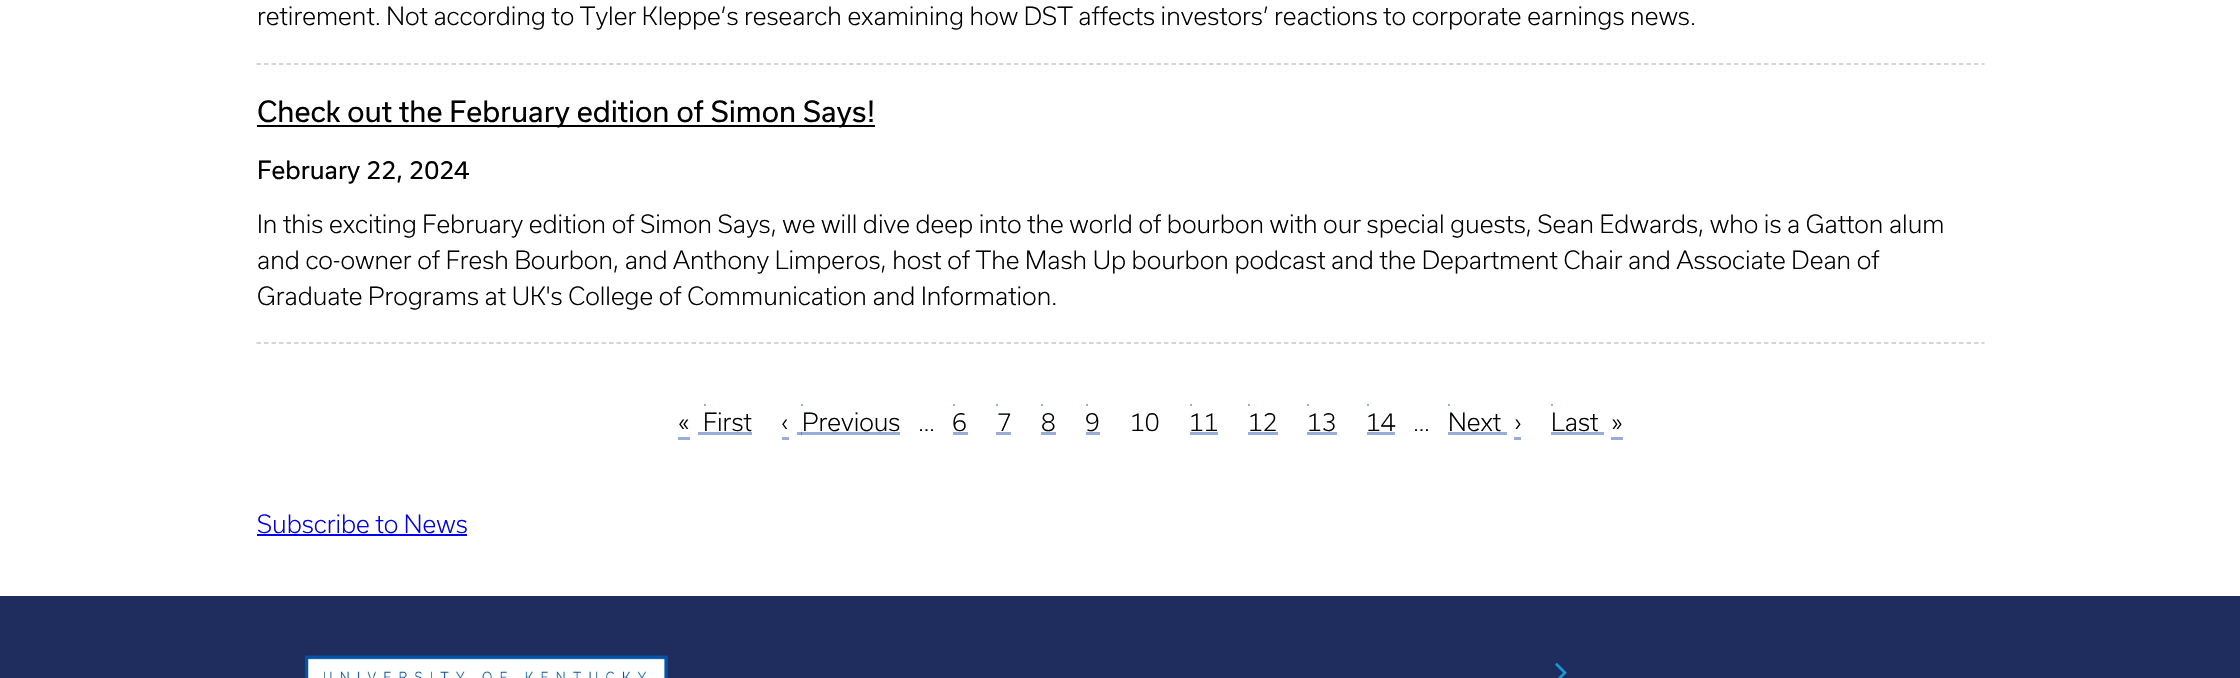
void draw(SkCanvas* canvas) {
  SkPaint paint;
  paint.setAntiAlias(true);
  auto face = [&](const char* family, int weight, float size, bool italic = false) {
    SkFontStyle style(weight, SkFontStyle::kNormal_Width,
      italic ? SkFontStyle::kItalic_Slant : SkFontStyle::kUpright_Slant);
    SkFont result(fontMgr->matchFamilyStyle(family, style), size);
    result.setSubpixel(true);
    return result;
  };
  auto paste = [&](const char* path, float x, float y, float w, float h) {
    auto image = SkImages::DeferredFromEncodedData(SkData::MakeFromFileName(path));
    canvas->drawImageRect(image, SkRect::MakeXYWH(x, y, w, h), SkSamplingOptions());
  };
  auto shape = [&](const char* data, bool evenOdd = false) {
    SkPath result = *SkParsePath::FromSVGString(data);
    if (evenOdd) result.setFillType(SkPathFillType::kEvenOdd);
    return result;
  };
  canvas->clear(0xffffffff);
  paint.setStroke(true);
  paint.setStrokeWidth(1.5f);
  paint.setColor(0xffc8c8c7);
  paint.setPathEffect(SkDashPathEffect::Make({{4.5f, 3}}, 0));
  canvas->drawPath(shape("M256.5 64H1984.5"), paint);
  paint.setPathEffect(nullptr);
  paint.setStroke(false);
  paint.setColor(0xff000000);
  canvas->drawRect(SkRect::MakeXYWH(257, 125, 618, 2), paint);
  paint.setStroke(true);
  paint.setColor(0xffc8c8c7);
  paint.setPathEffect(SkDashPathEffect::Make({{4.5f, 3}}, 0));
  canvas->drawPath(shape("M256.5 343H1984.5"), paint);
  paint.setPathEffect(nullptr);
  paint.setStroke(false);
  {
    const SkColor colors[] = {0xff99add9, 0xff99add9, 0xffffffff, 0xffffffff};
    const float stops[] = {0, 0.08f, 0.08f, 1};
    const SkPoint ends[] = {{684, 440}, {684, 404}};
    paint.setShader(SkGradientShader::MakeLinear(ends, colors, stops, 4, SkTileMode::kClamp));
    paint.setAlpha(255);
  }
  canvas->drawRect(SkRect::MakeXYWH(678, 437, 12, 3), paint);
  {
    const SkColor colors[] = {0xff99add9, 0xff99add9, 0xffffffff, 0xffffffff};
    const float stops[] = {0, 0.11f, 0.11f, 1};
    const SkPoint ends[] = {{701, 435}, {701, 408}};
    paint.setShader(SkGradientShader::MakeLinear(ends, colors, stops, 4, SkTileMode::kClamp));
    paint.setAlpha(255);
  }
  canvas->drawRect(SkRect::MakeXYWH(698, 432, 6, 3), paint);
  paint.setShader(nullptr);
  paint.setColor(0xff99add9);
  canvas->drawRect(SkRect::MakeXYWH(704, 404, 2, 2), paint);
  {
    const SkColor colors[] = {0xff99add9, 0xff99add9, 0xffffffff, 0xffffffff};
    const float stops[] = {0, 0.11f, 0.11f, 1};
    const SkPoint ends[] = {{728, 435}, {728, 408}};
    paint.setShader(SkGradientShader::MakeLinear(ends, colors, stops, 4, SkTileMode::kClamp));
    paint.setAlpha(255);
  }
  canvas->drawRect(SkRect::MakeXYWH(704, 432, 48, 3), paint);
  {
    const SkColor colors[] = {0xff99add9, 0xff99add9, 0xffffffff, 0xffffffff};
    const float stops[] = {0, 0.08f, 0.08f, 1};
    const SkPoint ends[] = {{785, 440}, {785, 404}};
    paint.setShader(SkGradientShader::MakeLinear(ends, colors, stops, 4, SkTileMode::kClamp));
    paint.setAlpha(255);
  }
  canvas->drawRect(SkRect::MakeXYWH(782, 437, 7, 3), paint);
  {
    const SkColor colors[] = {0xff99add9, 0xff99add9, 0xffffffff, 0xffffffff};
    const float stops[] = {0, 0.11f, 0.11f, 1};
    const SkPoint ends[] = {{799, 435}, {799, 408}};
    paint.setShader(SkGradientShader::MakeLinear(ends, colors, stops, 4, SkTileMode::kClamp));
    paint.setAlpha(255);
  }
  canvas->drawRect(SkRect::MakeXYWH(797, 432, 5, 3), paint);
  paint.setShader(nullptr);
  paint.setColor(0xff99add9);
  canvas->drawRect(SkRect::MakeXYWH(801, 404, 2, 2), paint);
  {
    const SkColor colors[] = {0x660033a0, 0x660033a0, 0x000033a0, 0x00000000};
    const float stops[] = {0, 0.11f, 0.11f, 1};
    const SkPoint ends[] = {{851, 435}, {851, 408}};
    paint.setShader(SkGradientShader::MakeLinear(ends, colors, stops, 4, SkTileMode::kClamp));
    paint.setAlpha(255);
  }
  canvas->drawRect(SkRect::MakeXYWH(801, 432, 99, 3), paint);
  paint.setShader(nullptr);
  paint.setColor(0xff99add9);
  canvas->drawRect(SkRect::MakeXYWH(953, 404, 2, 2), paint);
  {
    const SkColor colors[] = {0xff99add9, 0xff99add9, 0xffffffff, 0xffffffff};
    const float stops[] = {0, 0.11f, 0.11f, 1};
    const SkPoint ends[] = {{960, 435}, {960, 408}};
    paint.setShader(SkGradientShader::MakeLinear(ends, colors, stops, 4, SkTileMode::kClamp));
    paint.setAlpha(255);
  }
  canvas->drawRect(SkRect::MakeXYWH(953, 432, 15, 3), paint);
  paint.setShader(nullptr);
  paint.setColor(0xff99add9);
  canvas->drawRect(SkRect::MakeXYWH(996, 404, 2, 2), paint);
  {
    const SkColor colors[] = {0xff99add9, 0xff99add9, 0xffffffff, 0xffffffff};
    const float stops[] = {0, 0.11f, 0.11f, 1};
    const SkPoint ends[] = {{1004, 435}, {1004, 408}};
    paint.setShader(SkGradientShader::MakeLinear(ends, colors, stops, 4, SkTileMode::kClamp));
    paint.setAlpha(255);
  }
  canvas->drawRect(SkRect::MakeXYWH(996, 432, 15, 3), paint);
  paint.setShader(nullptr);
  paint.setColor(0xff99add9);
  canvas->drawRect(SkRect::MakeXYWH(1041, 404, 2, 2), paint);
  {
    const SkColor colors[] = {0xff99add9, 0xff99add9, 0xffffffff, 0xffffffff};
    const float stops[] = {0, 0.11f, 0.11f, 1};
    const SkPoint ends[] = {{1049, 435}, {1049, 408}};
    paint.setShader(SkGradientShader::MakeLinear(ends, colors, stops, 4, SkTileMode::kClamp));
    paint.setAlpha(255);
  }
  canvas->drawRect(SkRect::MakeXYWH(1041, 432, 15, 3), paint);
  paint.setShader(nullptr);
  paint.setColor(0xff99add9);
  canvas->drawRect(SkRect::MakeXYWH(1086, 404, 2, 2), paint);
  {
    const SkColor colors[] = {0xff99add9, 0xff99add9, 0xffffffff, 0xffffffff};
    const float stops[] = {0, 0.11f, 0.11f, 1};
    const SkPoint ends[] = {{1093, 435}, {1093, 408}};
    paint.setShader(SkGradientShader::MakeLinear(ends, colors, stops, 4, SkTileMode::kClamp));
    paint.setAlpha(255);
  }
  canvas->drawRect(SkRect::MakeXYWH(1086, 432, 14, 3), paint);
  paint.setShader(nullptr);
  paint.setColor(0xff99add9);
  canvas->drawRect(SkRect::MakeXYWH(1190, 404, 2, 2), paint);
  {
    const SkColor colors[] = {0xff99add9, 0xff99add9, 0xffffffff, 0xffffffff};
    const float stops[] = {0, 0.11f, 0.11f, 1};
    const SkPoint ends[] = {{1204, 435}, {1204, 408}};
    paint.setShader(SkGradientShader::MakeLinear(ends, colors, stops, 4, SkTileMode::kClamp));
    paint.setAlpha(255);
  }
  canvas->drawRect(SkRect::MakeXYWH(1190, 432, 28, 3), paint);
  paint.setShader(nullptr);
  paint.setColor(0xff99add9);
  canvas->drawRect(SkRect::MakeXYWH(1248, 404, 2, 2), paint);
  {
    const SkColor colors[] = {0xff99add9, 0xff99add9, 0xffffffff, 0xffffffff};
    const float stops[] = {0, 0.11f, 0.11f, 1};
    const SkPoint ends[] = {{1263, 435}, {1263, 408}};
    paint.setShader(SkGradientShader::MakeLinear(ends, colors, stops, 4, SkTileMode::kClamp));
    paint.setAlpha(255);
  }
  canvas->drawRect(SkRect::MakeXYWH(1248, 432, 30, 3), paint);
  paint.setShader(nullptr);
  paint.setColor(0xff99add9);
  canvas->drawRect(SkRect::MakeXYWH(1307, 404, 2, 2), paint);
  {
    const SkColor colors[] = {0xff99add9, 0xff99add9, 0xffffffff, 0xffffffff};
    const float stops[] = {0, 0.11f, 0.11f, 1};
    const SkPoint ends[] = {{1322, 435}, {1322, 408}};
    paint.setShader(SkGradientShader::MakeLinear(ends, colors, stops, 4, SkTileMode::kClamp));
    paint.setAlpha(255);
  }
  canvas->drawRect(SkRect::MakeXYWH(1307, 432, 30, 3), paint);
  paint.setShader(nullptr);
  paint.setColor(0xff99add9);
  canvas->drawRect(SkRect::MakeXYWH(1367, 404, 2, 2), paint);
  {
    const SkColor colors[] = {0xff99add9, 0xff99add9, 0xffffffff, 0xffffffff};
    const float stops[] = {0, 0.11f, 0.11f, 1};
    const SkPoint ends[] = {{1381, 435}, {1381, 408}};
    paint.setShader(SkGradientShader::MakeLinear(ends, colors, stops, 4, SkTileMode::kClamp));
    paint.setAlpha(255);
  }
  canvas->drawRect(SkRect::MakeXYWH(1367, 432, 28, 3), paint);
  paint.setShader(nullptr);
  paint.setColor(0xff99add9);
  canvas->drawRect(SkRect::MakeXYWH(1448, 404, 2, 2), paint);
  {
    const SkColor colors[] = {0xff99add9, 0xff99add9, 0xffffffff, 0xffffffff};
    const float stops[] = {0, 0.11f, 0.11f, 1};
    const SkPoint ends[] = {{1475, 435}, {1475, 408}};
    paint.setShader(SkGradientShader::MakeLinear(ends, colors, stops, 4, SkTileMode::kClamp));
    paint.setAlpha(255);
  }
  canvas->drawRect(SkRect::MakeXYWH(1448, 432, 54, 3), paint);
  {
    const SkColor colors[] = {0xff99add9, 0xff99add9, 0xffffffff, 0xffffffff};
    const float stops[] = {0, 0.11f, 0.11f, 1};
    const SkPoint ends[] = {{1504, 435}, {1504, 408}};
    paint.setShader(SkGradientShader::MakeLinear(ends, colors, stops, 4, SkTileMode::kClamp));
    paint.setAlpha(255);
  }
  canvas->drawRect(SkRect::MakeXYWH(1502, 432, 5, 3), paint);
  {
    const SkColor colors[] = {0xff99add9, 0xff99add9, 0xffffffff, 0xffffffff};
    const float stops[] = {0, 0.08f, 0.08f, 1};
    const SkPoint ends[] = {{1517, 440}, {1517, 404}};
    paint.setShader(SkGradientShader::MakeLinear(ends, colors, stops, 4, SkTileMode::kClamp));
    paint.setAlpha(255);
  }
  canvas->drawRect(SkRect::MakeXYWH(1514, 437, 7, 3), paint);
  paint.setShader(nullptr);
  paint.setColor(0xff99add9);
  canvas->drawRect(SkRect::MakeXYWH(1551, 404, 2, 2), paint);
  {
    const SkColor colors[] = {0xff99add9, 0xff99add9, 0xffffffff, 0xffffffff};
    const float stops[] = {0, 0.11f, 0.11f, 1};
    const SkPoint ends[] = {{1577, 435}, {1577, 408}};
    paint.setShader(SkGradientShader::MakeLinear(ends, colors, stops, 4, SkTileMode::kClamp));
    paint.setAlpha(255);
  }
  canvas->drawRect(SkRect::MakeXYWH(1551, 432, 53, 3), paint);
  {
    const SkColor colors[] = {0xff99add9, 0xff99add9, 0xffffffff, 0xffffffff};
    const float stops[] = {0, 0.08f, 0.08f, 1};
    const SkPoint ends[] = {{1617, 440}, {1617, 404}};
    paint.setShader(SkGradientShader::MakeLinear(ends, colors, stops, 4, SkTileMode::kClamp));
    paint.setAlpha(255);
  }
  canvas->drawRect(SkRect::MakeXYWH(1611, 437, 12, 3), paint);
  paint.setShader(nullptr);
  paint.setColor(0xff0000ee);
  canvas->drawRect(SkRect::MakeXYWH(257, 534, 210, 2), paint);
  paint.setColor(0xff1f2c5e);
  canvas->drawRect(SkRect::MakeXYWH(0, 596, 2240, 82), paint);
  paste("img/1.png", 304, 655, 364, 23);
  paste("img/2.png", 1555, 663, 12, 15);
  auto f0 = face("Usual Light", 300, 24);
  paint.setColor(0xff000000);
  canvas->drawString("retirement. Not according to Tyler Kleppe’s research examining how DST affects investors’ reactions to corporate earnings news.", 257, 25, f0, paint);
  auto f1 = face("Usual", 400, 28);
  canvas->drawString("Check out the February edition of Simon Says!", 257, 122, f1, paint);
  auto f2 = face("Usual", 400, 24);
  canvas->drawString("February 22, 2024", 257, 179, f2, paint);
  {
    const struct { const char* s; float x, y; } items[] = {
      {"In this exciting February edition of Simon Says, we will dive deep into the world of bourbon with our special guests, Sean Edwards, who is a Gatton alum", 257, 233},
      {"and co-owner of Fresh Bourbon, and Anthony Limperos, host of The Mash Up bourbon podcast and the Department Chair and Associate Dean of", 257, 269},
      {"Graduate Programs at UK's College of Communication and Information.", 257, 305},
      {"«", 678, 431},
      {"First", 703, 431},
      {"‹", 781, 431},
      {"Previous", 802, 431},
      {"…", 918, 431},
      {"6", 952, 431},
      {"7", 997, 431},
      {"8", 1041, 431},
      {"9", 1085, 431},
      {"10", 1130, 431},
      {"11", 1189, 431},
      {"12", 1248, 431},
      {"13", 1307, 431},
      {"14", 1366, 431},
      {"…", 1413, 431},
      {"Next", 1448, 431},
      {"›", 1514, 431},
      {"Last", 1551, 431},
      {"»", 1611, 431},
    };
    for (auto [s, x, y] : items) {
      canvas->drawString(s, x, y, f0, paint);
    }
  }
  paint.setColor(0xff0000ee);
  canvas->drawString("Subscribe to News", 257, 533, f0, paint);
}
